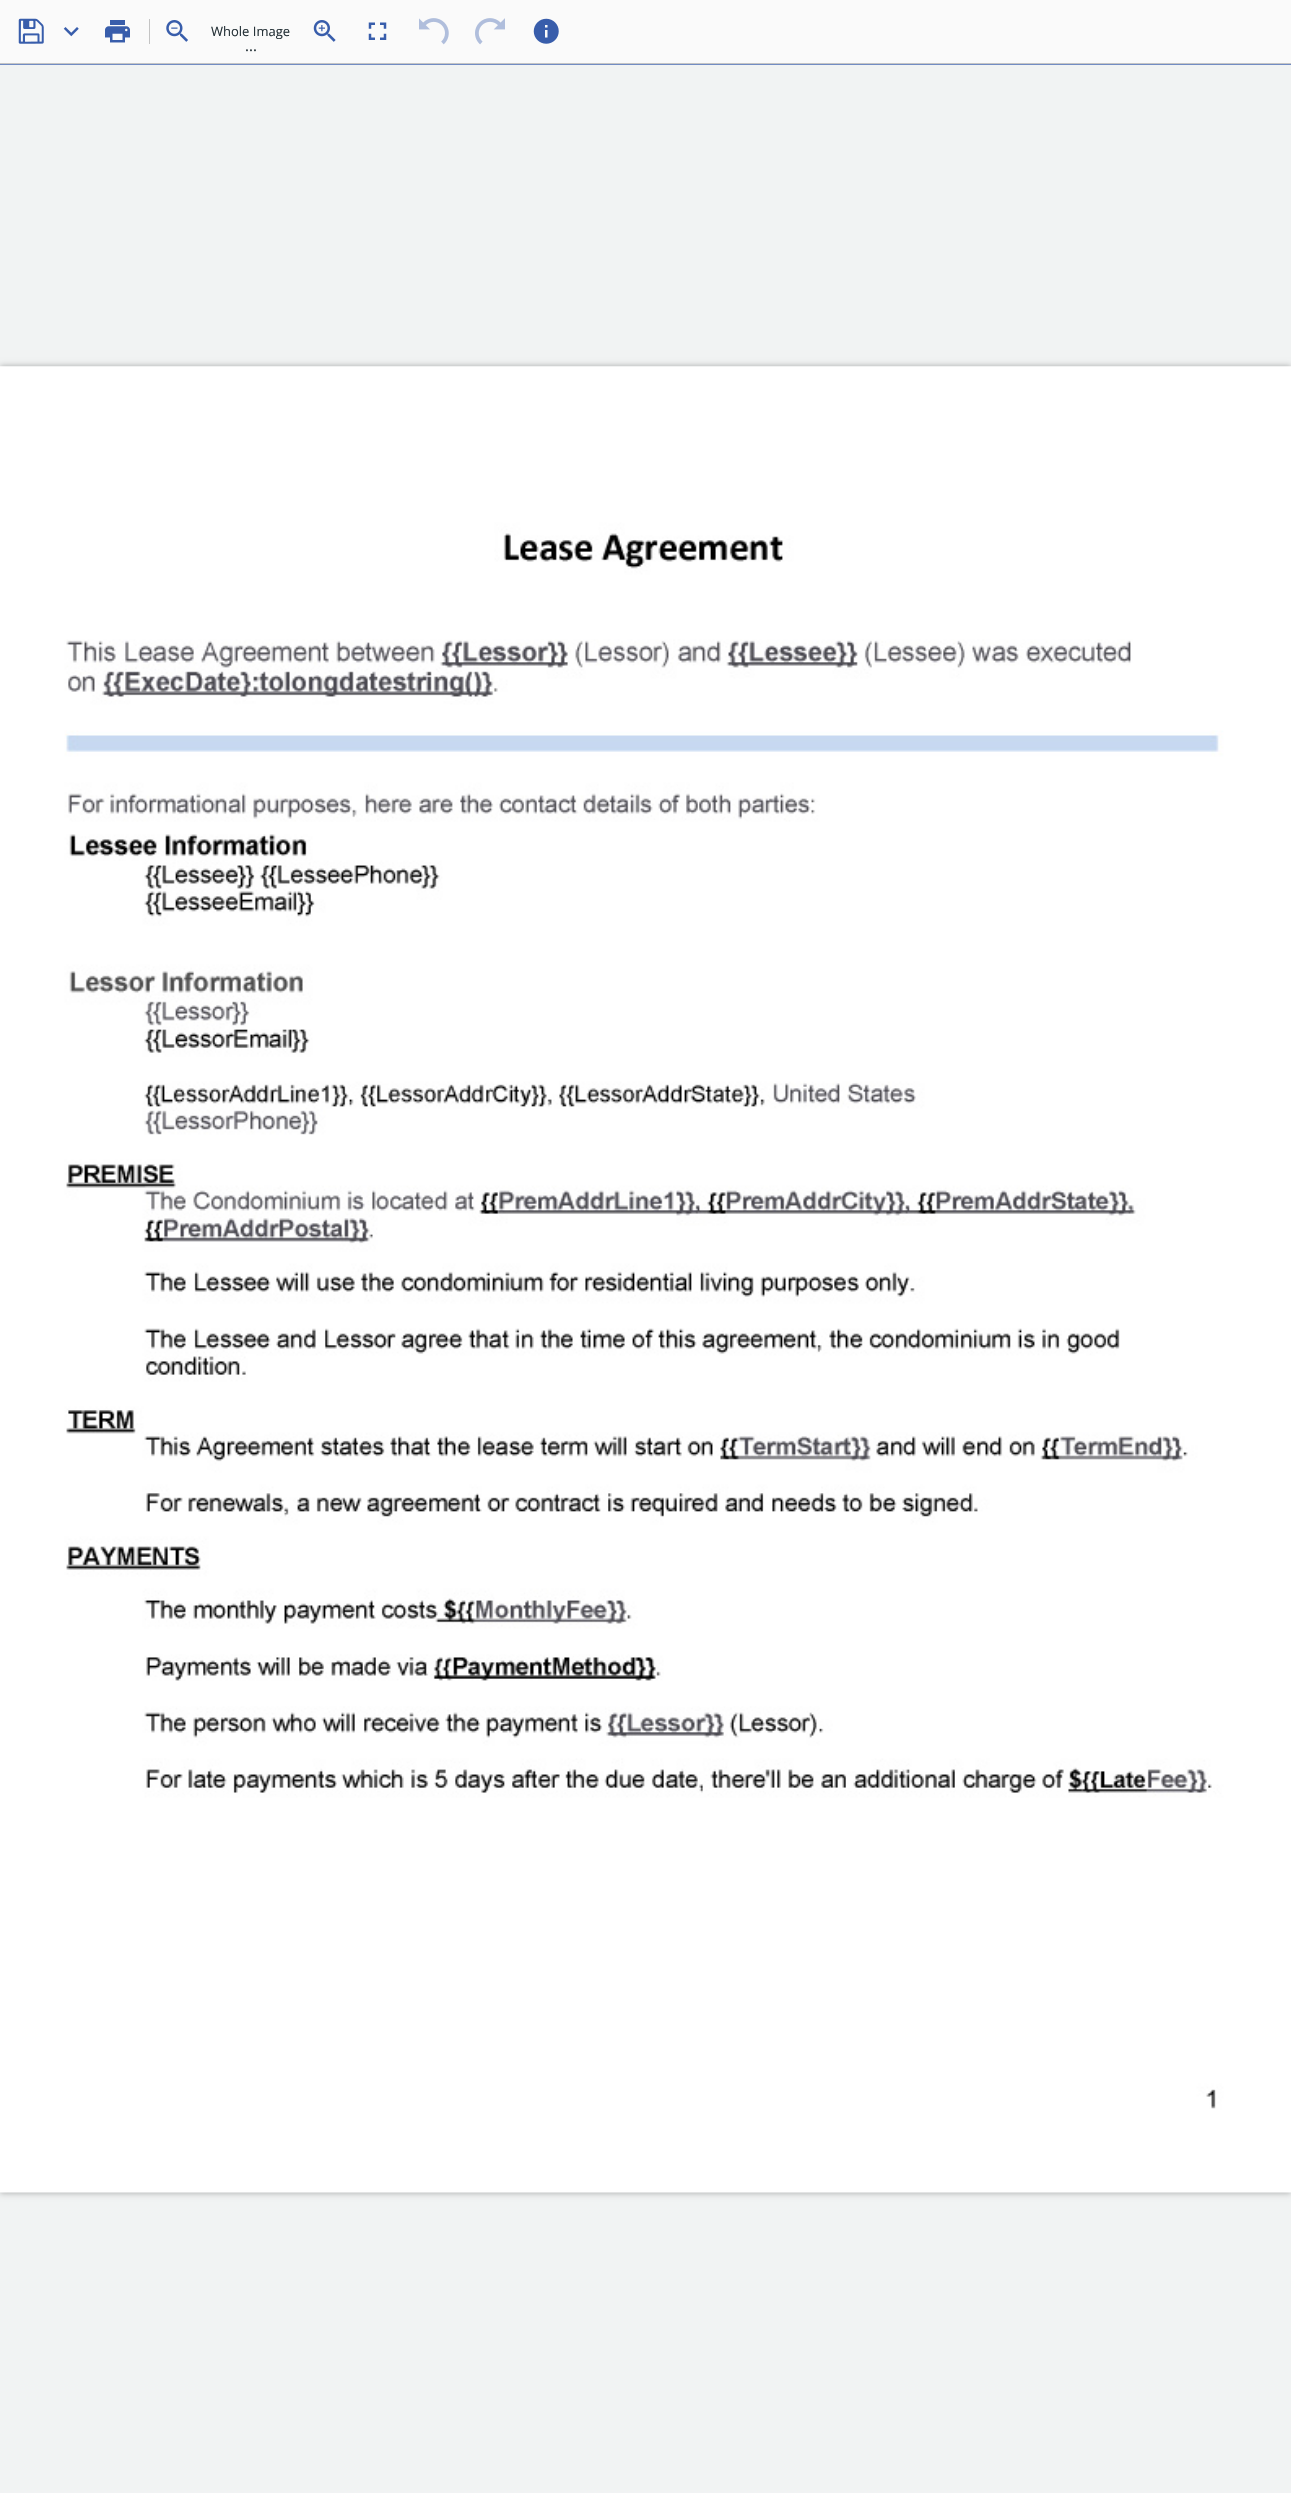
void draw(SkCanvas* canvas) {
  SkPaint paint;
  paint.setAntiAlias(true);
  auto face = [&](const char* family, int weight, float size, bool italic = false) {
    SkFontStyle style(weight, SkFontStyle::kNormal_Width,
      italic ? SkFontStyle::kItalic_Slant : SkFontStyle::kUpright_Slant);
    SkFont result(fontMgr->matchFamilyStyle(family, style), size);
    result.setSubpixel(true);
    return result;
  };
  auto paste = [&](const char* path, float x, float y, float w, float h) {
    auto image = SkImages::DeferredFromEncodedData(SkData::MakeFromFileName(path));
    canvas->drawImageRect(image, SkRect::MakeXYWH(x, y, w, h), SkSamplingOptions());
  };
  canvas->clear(0xfffafafa);
  paint.setColor(0xffc4c4c4);
  canvas->drawRect(SkRect::MakeXYWH(0, 63, 1291, 1), paint);
  paste("img/1.png", 18, 18, 26, 26);
  paste("img/2.png", 63, 27, 16, 10);
  paste("img/3.png", 105, 20, 25, 23);
  canvas->drawRect(SkRect::MakeXYWH(149, 19, 1, 25), paint);
  paste("img/4.png", 166, 20, 22, 22);
  paste("img/5.png", 313, 20, 23, 22);
  paste("img/6.png", 368, 22, 19, 18);
  paste("img/7.png", 419, 18, 30, 27);
  paste("img/8.png", 475, 18, 30, 27);
  paste("img/9.png", 533, 18, 26, 26);
  paint.setColor(0xff728cc3);
  canvas->drawRect(SkRect::MakeXYWH(0, 64, 1291, 1), paint);
  paint.setColor(0xfff1f3f3);
  canvas->drawRect(SkRect::MakeXYWH(0, 65, 1291, 2428), paint);
  paint.setColor(0x4d000000);
  paint.setMaskFilter(SkMaskFilter::MakeBlur(kNormal_SkBlurStyle, 3));
  canvas->drawRect(SkRect::MakeXYWH(0, 366, 1291, 1827), paint);
  paint.setMaskFilter(nullptr);
  paste("img/10.png", 0, 366, 1291, 1827);
  auto f0 = face("Open Sans", 400, 13);
  paint.setColor(0xff263238);
  canvas->drawString("Whole Image", 211, 36, f0, paint);
  auto f1 = face("Open Sans", 400, 15);
  canvas->drawString("...", 245, 51, f1, paint);
}
